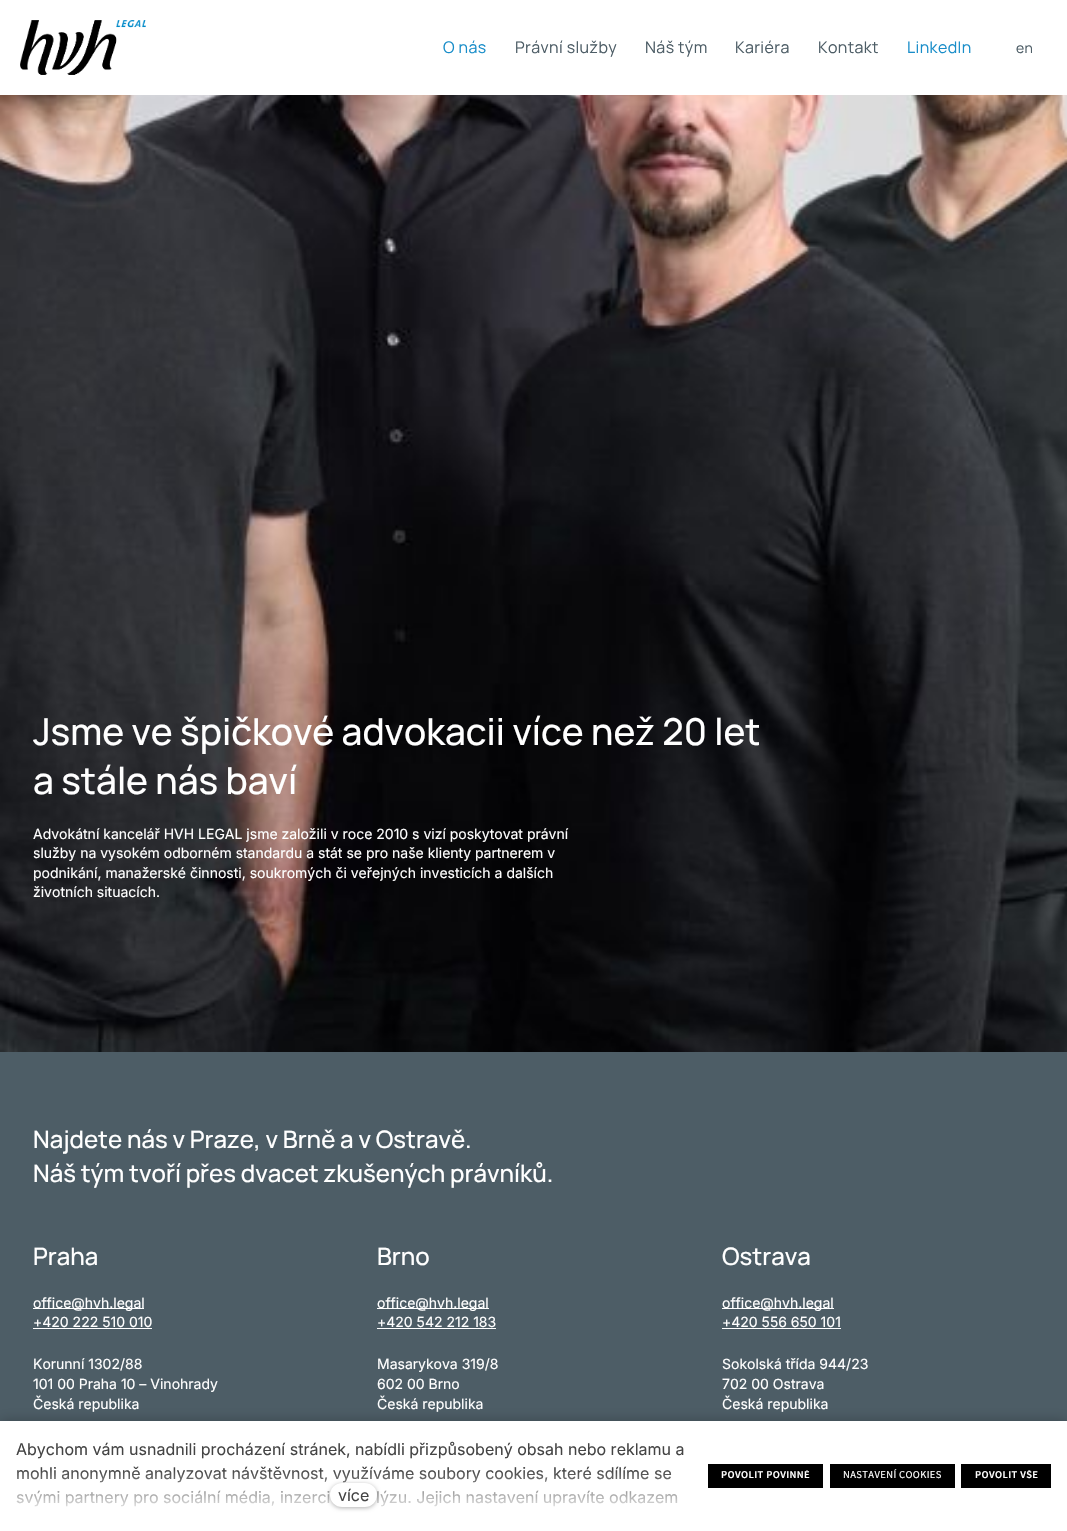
void draw(SkCanvas* canvas) {
  SkPaint paint;
  paint.setAntiAlias(true);
  auto face = [&](const char* family, int weight, float size, bool italic = false) {
    SkFontStyle style(weight, SkFontStyle::kNormal_Width,
      italic ? SkFontStyle::kItalic_Slant : SkFontStyle::kUpright_Slant);
    SkFont result(fontMgr->matchFamilyStyle(family, style), size);
    result.setSubpixel(true);
    return result;
  };
  auto writeSpaced = [&](const char* s, float x, float y, const SkFont& font, const SkPaint& ink, float letter, float word) {
    std::vector<SkGlyphID> glyphs(font.countText(s, strlen(s), SkTextEncoding::kUTF8));
    std::vector<float> xs(glyphs.size());
    font.textToGlyphs(s, strlen(s), SkTextEncoding::kUTF8, glyphs);
    font.getXPos(glyphs, xs, x);
    float extra = 0;
    for (size_t i = 0; i < glyphs.size(); i++) {
      xs[i] += extra;
      extra += letter + word * (glyphs[i] == font.unicharToGlyph(' '));
    }
    canvas->drawTextBlob(SkTextBlob::MakeFromPosHGlyphs(glyphs, xs, y, font), 0, 0, ink);
  };
  auto paste = [&](const char* path, float x, float y, float w, float h) {
    auto image = SkImages::DeferredFromEncodedData(SkData::MakeFromFileName(path));
    canvas->drawImageRect(image, SkRect::MakeXYWH(x, y, w, h), SkSamplingOptions());
  };
  canvas->clear(0xffffffff);
  paste("img/1.png", 20, 20, 126, 55);
  paste("img/2.png", 0, 95, 1067, 957);
  {
    const struct { float x, y, w, h; SkColor color; } items[] = {
      {0, 1052, 1067, 369, 0xff4d5d66},
      {33, 1308, 111, 1, 0xffffffff},
      {33, 1328, 119, 1, 0xffffffff},
      {377, 1308, 112, 1, 0xffffffff},
      {377, 1328, 119, 1, 0xffffffff},
      {722, 1308, 112, 1, 0xffffffff},
      {722, 1328, 119, 1, 0xffffffff},
    };
    for (auto [x, y, w, h, color] : items) {
      paint.setColor(color);
      canvas->drawRect(SkRect::MakeXYWH(x, y, w, h), paint);
    }
  }
  paint.setColor(0x40000000);
  paint.setMaskFilter(SkMaskFilter::MakeBlur(kNormal_SkBlurStyle, 6));
  canvas->drawRect(SkRect::MakeXYWH(0, 1421, 1067, 110), paint);
  paint.setMaskFilter(nullptr);
  {
    const struct { float x, y, w, h; SkColor color; } items[] = {
      {0, 1421, 1067, 110, 0xffffffff},
      {708, 1464, 115, 24, 0xff000000},
      {830, 1464, 125, 24, 0xff000000},
      {961, 1464, 90, 24, 0xff000000},
    };
    for (auto [x, y, w, h, color] : items) {
      paint.setColor(color);
      canvas->drawRect(SkRect::MakeXYWH(x, y, w, h), paint);
    }
  }
  auto f0 = face("Manrope", 400, 16);
  paint.setColor(0xff188dc9);
  writeSpaced("O nás", 443, 53, f0, paint, 0.4f, 0);
  paint.setColor(0xff4d5d66);
  {
    const struct { const char* s; float x, y; } items[] = {
      {"Právní služby", 515, 53},
      {"Náš tým", 645, 53},
      {"Kariéra", 735, 53},
      {"Kontakt", 818, 53},
    };
    for (auto [s, x, y] : items) {
      writeSpaced(s, x, y, f0, paint, 0.4f, 0);
    }
  }
  paint.setColor(0xff188dc9);
  writeSpaced("LinkedIn", 907, 53, f0, paint, 0.4f, 0);
  auto f1 = face("Manrope", 400, 14);
  paint.setColor(0xff4d5d66);
  writeSpaced("en", 1016, 53, f1, paint, 0.4f, 0);
  auto f2 = face("Manrope", 500, 37);
  paint.setColor(0xffffffff);
  canvas->drawString("Jsme ve špičkové advokacii více než 20 let", 33, 745, f2, paint);
  canvas->drawString("a stále nás baví", 33, 794, f2, paint);
  auto f3 = face("Inter", 400, 14);
  {
    const struct { const char* s; float x, y; } items[] = {
      {"Advokátní kancelář HVH LEGAL jsme založili v roce 2010 s vizí poskytovat právní", 33, 839},
      {"služby na vysokém odborném standardu a stát se pro naše klienty partnerem v", 33, 858},
      {"podnikání, manažerské činnosti, soukromých či veřejných investicích a dalších", 33, 878},
      {"životních situacích.", 33, 897},
    };
    for (auto [s, x, y] : items) {
      canvas->drawString(s, x, y, f3, paint);
    }
  }
  auto f4 = face("Manrope", 500, 24);
  {
    const struct { const char* s; float x, y; } items[] = {
      {"Najdete nás v Praze, v Brně a v Ostravě.", 33, 1148},
      {"Náš tým tvoří přes dvacet zkušených právníků.", 33, 1182},
      {"Praha", 33, 1265},
    };
    for (auto [s, x, y] : items) {
      canvas->drawString(s, x, y, f4, paint);
    }
  }
  {
    const struct { const char* s; float x, y; } items[] = {
      {"office@hvh.legal", 33, 1308},
      {"+420 222 510 010", 33, 1327},
      {"Korunní 1302/88", 33, 1369},
      {"101 00 Praha 10 – Vinohrady", 33, 1389},
      {"Česká republika", 33, 1409},
    };
    for (auto [s, x, y] : items) {
      canvas->drawString(s, x, y, f3, paint);
    }
  }
  canvas->drawString("Brno", 377, 1265, f4, paint);
  {
    const struct { const char* s; float x, y; } items[] = {
      {"office@hvh.legal", 377, 1308},
      {"+420 542 212 183", 377, 1327},
      {"Masarykova 319/8", 377, 1369},
      {"602 00 Brno", 377, 1389},
      {"Česká republika", 377, 1409},
    };
    for (auto [s, x, y] : items) {
      canvas->drawString(s, x, y, f3, paint);
    }
  }
  canvas->drawString("Ostrava", 722, 1265, f4, paint);
  {
    const struct { const char* s; float x, y; } items[] = {
      {"office@hvh.legal", 722, 1308},
      {"+420 556 650 101", 722, 1327},
      {"Sokolská třída 944/23", 722, 1369},
      {"702 00 Ostrava", 722, 1389},
      {"Česká republika", 722, 1409},
    };
    for (auto [s, x, y] : items) {
      canvas->drawString(s, x, y, f3, paint);
    }
  }
  auto f5 = face("Inter", 400, 16);
  paint.setColor(0xff444444);
  {
    const struct { const char* s; float x, y; } items[] = {
      {"Abychom vám usnadnili procházení stránek, nabídli přizpůsobený obsah nebo reklamu a", 16, 1455},
      {"mohli anonymně analyzovat návštěvnost, využíváme soubory cookies, které sdílíme se", 16, 1479},
      {"svými partnery pro sociální média, inzerci", 16, 1503},
      {"lýzu. Jejich nastavení upravíte odkazem", 376, 1503},
    };
    for (auto [s, x, y] : items) {
      canvas->drawString(s, x, y, f5, paint);
    }
  }
  {
    const SkColor colors[] = {0xffffffff, 0x00ffffff};
    const float stops[] = {0, 1};
    const SkPoint ends[] = {{354, 1515}, {354, 1470}};
    paint.setShader(SkGradientShader::MakeLinear(ends, colors, stops, 2, SkTileMode::kClamp));
    paint.setAlpha(255);
  }
  canvas->drawRect(SkRect::MakeXYWH(17, 1471, 660, 36), paint);
  paint.setShader(nullptr);
  paint.setColor(0x4d000000);
  paint.setMaskFilter(SkMaskFilter::MakeBlur(kNormal_SkBlurStyle, 2));
  canvas->drawRoundRect(SkRect::MakeXYWH(330, 1484, 47, 24), 12, 12, paint);
  paint.setMaskFilter(nullptr);
  paint.setColor(0xffffffff);
  canvas->drawRoundRect(SkRect::MakeXYWH(330, 1483, 47, 24), 12, 12, paint);
  paint.setColor(0xff444444);
  canvas->drawString("více", 338, 1501, f5, paint);
  canvas->save();
  canvas->clipRect(SkRect::MakeXYWH(721, 1470, 89, 11));
  auto f6 = face("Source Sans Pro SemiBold", 600, 10.5f);
  paint.setColor(0xffffffff);
  writeSpaced("POVOLIT POVINNÉ", 721, 1478, f6, paint, 0.4f, 0);
  canvas->restore();
  auto f7 = face("Source Sans Pro", 400, 10.5f);
  writeSpaced("NASTAVENÍ COOKIES", 843, 1478, f7, paint, 0.4f, 0);
  canvas->save();
  canvas->clipRect(SkRect::MakeXYWH(975, 1470, 63, 11));
  writeSpaced("POVOLIT VŠE", 975, 1478, f6, paint, 0.4f, 0);
  canvas->restore();
}
